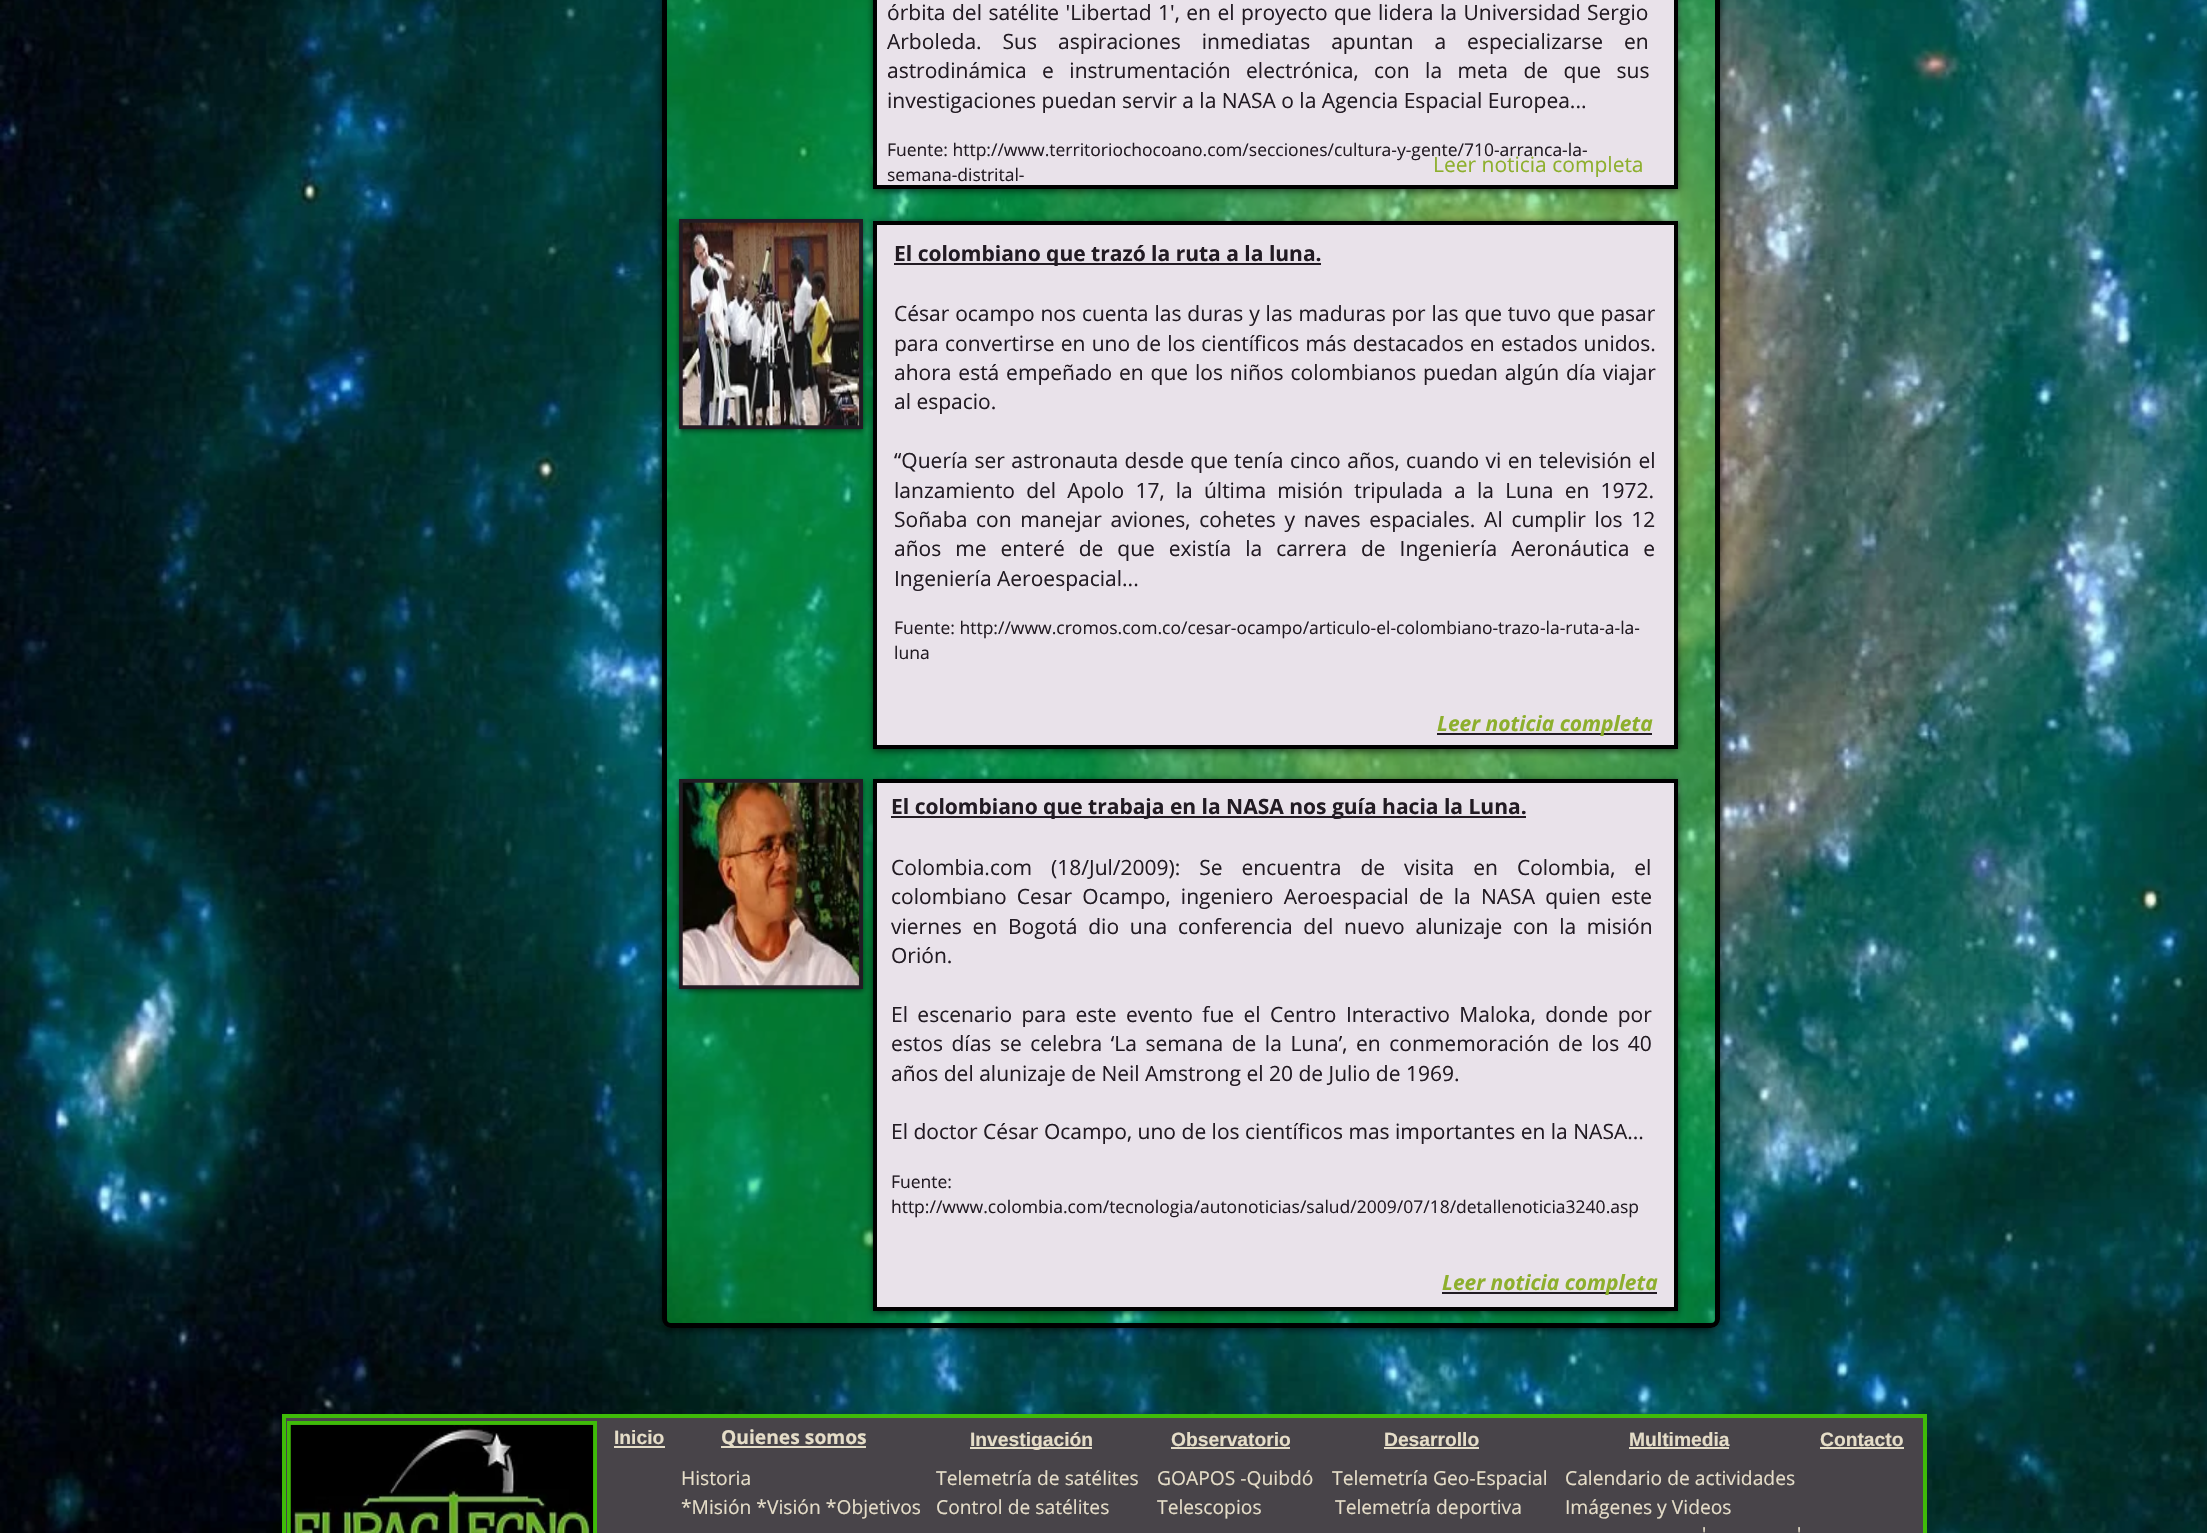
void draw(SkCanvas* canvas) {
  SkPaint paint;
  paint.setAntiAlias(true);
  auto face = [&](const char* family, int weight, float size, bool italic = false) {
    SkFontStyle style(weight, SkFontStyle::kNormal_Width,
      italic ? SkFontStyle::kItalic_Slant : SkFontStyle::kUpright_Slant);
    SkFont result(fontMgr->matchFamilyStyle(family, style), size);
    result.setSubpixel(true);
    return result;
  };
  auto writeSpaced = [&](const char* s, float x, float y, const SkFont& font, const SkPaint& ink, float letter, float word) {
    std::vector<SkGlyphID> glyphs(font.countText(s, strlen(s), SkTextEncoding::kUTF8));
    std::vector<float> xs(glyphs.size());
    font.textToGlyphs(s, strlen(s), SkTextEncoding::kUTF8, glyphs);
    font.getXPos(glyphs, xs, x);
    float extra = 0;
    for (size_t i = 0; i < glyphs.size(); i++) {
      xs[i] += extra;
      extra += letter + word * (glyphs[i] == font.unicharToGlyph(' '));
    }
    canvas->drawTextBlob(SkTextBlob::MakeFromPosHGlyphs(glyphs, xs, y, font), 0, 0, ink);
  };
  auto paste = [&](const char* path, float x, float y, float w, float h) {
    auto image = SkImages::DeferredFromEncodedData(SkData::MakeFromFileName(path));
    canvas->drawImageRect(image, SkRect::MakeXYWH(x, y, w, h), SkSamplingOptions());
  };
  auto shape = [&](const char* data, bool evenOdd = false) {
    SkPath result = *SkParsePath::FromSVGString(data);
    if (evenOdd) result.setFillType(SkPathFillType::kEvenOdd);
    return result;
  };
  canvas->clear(0xffffffff);
  paste("img/1.png", 0, 0, 2207, 1533);
  canvas->save();
  canvas->clipPath(shape("M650 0H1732V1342H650ZM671-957H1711C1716-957 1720-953 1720-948V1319C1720 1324 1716 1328 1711 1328H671C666 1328 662 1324 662 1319V-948C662-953 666-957 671-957Z", true), true);
  paint.setColor(0x99000000);
  paint.setMaskFilter(SkMaskFilter::MakeBlur(kNormal_SkBlurStyle, 3.5f));
  canvas->drawRoundRect(SkRect::MakeXYWH(662, -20, 1058, 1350), 9, 9, paint);
  paint.setMaskFilter(nullptr);
  canvas->restore();
  paint.setColor(0x6105d72a);
  canvas->drawRoundRect(SkRect::MakeXYWH(664.5f, -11.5f, 1053, 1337), 6.5f, 6.5f, paint);
  paint.setStroke(true);
  paint.setStrokeWidth(5);
  paint.setColor(0xff000000);
  canvas->drawRoundRect(SkRect::MakeXYWH(664.5f, -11.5f, 1053, 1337), 6.5f, 6.5f, paint);
  paint.setStroke(false);
  paint.setColor(0x99000000);
  paint.setMaskFilter(SkMaskFilter::MakeBlur(kNormal_SkBlurStyle, 3.5f));
  canvas->drawRect(SkRect::MakeXYWH(873, -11, 805, 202), paint);
  paint.setMaskFilter(nullptr);
  paint.setColor(0xffe9e2ea);
  canvas->drawRect(SkRect::MakeXYWH(875, -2, 801, 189), paint);
  paint.setStroke(true);
  paint.setStrokeWidth(4);
  paint.setColor(0xff000000);
  canvas->drawRect(SkRect::MakeXYWH(875, -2, 801, 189), paint);
  paint.setStroke(false);
  paint.setColor(0x80000000);
  paint.setMaskFilter(SkMaskFilter::MakeBlur(kNormal_SkBlurStyle, 2.5f));
  canvas->drawRect(SkRect::MakeXYWH(679, 221, 184, 210), paint);
  paint.setMaskFilter(nullptr);
  paint.setColor(0xff221b23);
  canvas->drawRect(SkRect::MakeXYWH(679, 219, 184, 210), paint);
  paste("img/2.png", 682, 222, 178, 204);
  paint.setColor(0x99000000);
  paint.setMaskFilter(SkMaskFilter::MakeBlur(kNormal_SkBlurStyle, 3.5f));
  canvas->drawRect(SkRect::MakeXYWH(873, 222, 805, 529), paint);
  paint.setMaskFilter(nullptr);
  paint.setColor(0xffe9e2ea);
  canvas->drawRect(SkRect::MakeXYWH(875, 223, 801, 524), paint);
  paint.setStroke(true);
  paint.setColor(0xff000000);
  canvas->drawRect(SkRect::MakeXYWH(875, 223, 801, 524), paint);
  paint.setStroke(false);
  paint.setColor(0xff221b23);
  canvas->drawRect(SkRect::MakeXYWH(894, 263, 427, 2), paint);
  canvas->drawRect(SkRect::MakeXYWH(1437, 733, 215, 2), paint);
  paint.setColor(0x80000000);
  paint.setMaskFilter(SkMaskFilter::MakeBlur(kNormal_SkBlurStyle, 2.5f));
  canvas->drawRect(SkRect::MakeXYWH(679, 781, 184, 210), paint);
  paint.setMaskFilter(nullptr);
  paint.setColor(0xff221b23);
  canvas->drawRect(SkRect::MakeXYWH(679, 779, 184, 210), paint);
  paste("img/3.png", 682, 782, 178, 204);
  paint.setColor(0x99000000);
  paint.setMaskFilter(SkMaskFilter::MakeBlur(kNormal_SkBlurStyle, 3.5f));
  canvas->drawRect(SkRect::MakeXYWH(873, 781, 805, 532), paint);
  paint.setMaskFilter(nullptr);
  paint.setColor(0xffe9e2ea);
  canvas->drawRect(SkRect::MakeXYWH(875, 781, 801, 528), paint);
  paint.setStroke(true);
  paint.setColor(0xff000000);
  canvas->drawRect(SkRect::MakeXYWH(875, 781, 801, 528), paint);
  paint.setStroke(false);
  paint.setColor(0xff221b23);
  canvas->drawRect(SkRect::MakeXYWH(891, 816, 635, 2), paint);
  canvas->drawRect(SkRect::MakeXYWH(1442, 1292, 215, 2), paint);
  paint.setColor(0xff484449);
  canvas->drawRect(SkRect::MakeXYWH(284, 1416, 1641, 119), paint);
  paint.setStroke(true);
  paint.setColor(0xff3fbb09);
  canvas->drawRect(SkRect::MakeXYWH(284, 1416, 1641, 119), paint);
  paint.setStroke(false);
  canvas->drawRect(SkRect::MakeXYWH(287, 1421, 310, 112), paint);
  paste("img/4.png", 290, 1424, 304, 109);
  {
    const struct { float x, y, w, h; SkColor color; } items[] = {
      {614, 1446, 51, 2, 0xffe5ddc8},
      {721, 1446, 145, 2, 0xffe5ddc8},
      {970, 1447, 122, 2, 0xffe5ddc8},
      {1171, 1447, 119, 2, 0xffe5ddc8},
      {1384, 1447, 95, 2, 0xffe5ddc8},
      {1629, 1447, 100, 2, 0xffe5ddc8},
      {1820, 1447, 84, 2, 0xffe5ddc8},
    };
    for (auto [x, y, w, h, color] : items) {
      paint.setColor(color);
      canvas->drawRect(SkRect::MakeXYWH(x, y, w, h), paint);
    }
  }
  auto f0 = face("Open Sans", 400, 21);
  paint.setColor(0xff221b23);
  writeSpaced("órbita del satélite 'Libertad 1', en el proyecto que lidera la Universidad Sergio", 887, 20, f0, paint, 0, 1);
  writeSpaced("Arboleda. Sus aspiraciones inmediatas apuntan a especializarse en", 887, 49, f0, paint, 0, 15.5f);
  writeSpaced("astrodinámica e instrumentación electrónica, con la meta de que sus", 887, 78, f0, paint, 0, 10);
  canvas->drawString("investigaciones puedan servir a la NASA o la Agencia Espacial Europea...", 887, 108, f0, paint);
  auto f1 = face("Open Sans", 400, 17.5f);
  canvas->drawString("Fuente: http://www.territoriochocoano.com/secciones/cultura-y-gente/710-arranca-la-", 887, 156, f1, paint);
  canvas->drawString("semana-distrital-", 887, 181, f1, paint);
  paint.setColor(0xff8daf2d);
  canvas->drawString("Leer noticia completa", 1433, 172, f0, paint);
  auto f2 = face("Open Sans", 700, 21);
  paint.setColor(0xff221b23);
  canvas->drawString("El colombiano que trazó la ruta a la luna.", 894, 261, f2, paint);
  writeSpaced("César ocampo nos cuenta las duras y las maduras por las que tuvo que pasar", 894, 321, f0, paint, 0, 0.4f);
  writeSpaced("para convertirse en uno de los científicos más destacados en estados unidos.", 894, 351, f0, paint, 0, 0.75f);
  writeSpaced("ahora está empeñado en que los niños colombianos puedan algún día viajar", 894, 380, f0, paint, 0, 1.4f);
  canvas->drawString("al espacio.", 894, 409, f0, paint);
  writeSpaced("“Quería ser astronauta desde que tenía cinco años, cuando vi en televisión el", 894, 468, f0, paint, 0, 1);
  writeSpaced("lanzamiento del Apolo 17, la última misión tripulada a la Luna en 1972.", 894, 498, f0, paint, 0, 5.75f);
  writeSpaced("Soñaba con manejar aviones, cohetes y naves espaciales. Al cumplir los 12", 894, 527, f0, paint, 0, 3.25f);
  writeSpaced("años me enteré de que existía la carrera de Ingeniería Aeronáutica e", 894, 556, f0, paint, 0, 8.5f);
  canvas->drawString("Ingeniería Aeroespacial...", 894, 586, f0, paint);
  canvas->drawString("Fuente: http://www.cromos.com.co/cesar-ocampo/articulo-el-colombiano-trazo-la-ruta-a-la-", 894, 634, f1, paint);
  canvas->drawString("luna", 894, 659, f1, paint);
  auto f3 = face("Open Sans", 700, 21, true);
  paint.setColor(0xff8daf2d);
  canvas->drawString("Leer noticia completa", 1437, 731, f3, paint);
  paint.setColor(0xff221b23);
  canvas->drawString("El colombiano que trabaja en la NASA nos guía hacia la Luna.", 891, 814, f2, paint);
  writeSpaced("Colombia.com (18/Jul/2009): Se encuentra de visita en Colombia, el", 891, 875, f0, paint, 0, 13.5f);
  writeSpaced("colombiano Cesar Ocampo, ingeniero Aeroespacial de la NASA quien este", 891, 904, f0, paint, 0, 4.75f);
  writeSpaced("viernes en Bogotá dio una conferencia del nuevo alunizaje con la misión", 891, 934, f0, paint, 0, 5.25f);
  canvas->drawString("Orión.", 891, 963, f0, paint);
  writeSpaced("El escenario para este evento fue el Centro Interactivo Maloka, donde por", 891, 1022, f0, paint, 0, 3.9f);
  writeSpaced("estos días se celebra ‘La semana de la Luna’, en conmemoración de los 40", 891, 1051, f0, paint, 0, 3.1f);
  canvas->drawString("años del alunizaje de Neil Amstrong el 20 de Julio de 1969.", 891, 1081, f0, paint);
  canvas->drawString("El doctor César Ocampo, uno de los científicos mas importantes en la NASA...", 891, 1139, f0, paint);
  canvas->drawString("Fuente:", 891, 1188, f1, paint);
  canvas->drawString("http://www.colombia.com/tecnologia/autonoticias/salud/2009/07/18/detallenoticia3240.asp", 891, 1213, f1, paint);
  paint.setColor(0xff8daf2d);
  canvas->drawString("Leer noticia completa", 1442, 1290, f3, paint);
  auto f4 = face("Liberation Sans", 700, 19.25f);
  paint.setColor(0xffe5ddc8);
  canvas->drawString("Inicio", 614, 1444, f4, paint);
  auto f5 = face("Open Sans", 700, 19.25f);
  canvas->drawString("Quienes somos", 721, 1444, f5, paint);
  {
    const struct { const char* s; float x, y; } items[] = {
      {"Investigación", 970, 1446},
      {"Observatorio", 1171, 1446},
      {"Desarrollo", 1384, 1446},
      {"Multimedia", 1629, 1446},
      {"Contacto", 1820, 1446},
    };
    for (auto [s, x, y] : items) {
      canvas->drawString(s, x, y, f4, paint);
    }
  }
  auto f6 = face("Open Sans", 400, 19.25f);
  {
    const struct { const char* s; float x, y; } items[] = {
      {"Historia", 681, 1485},
      {"Telemetría de satélites", 936, 1485},
      {"GOAPOS -Quibdó", 1157, 1485},
      {"Telemetría Geo-Espacial", 1332, 1485},
      {"Calendario de actividades", 1565, 1485},
      {"*Misión *Visión *Objetivos", 681, 1514},
      {"Control de satélites", 936, 1514},
      {"Telescopios", 1157, 1514},
      {"Telemetría deportiva", 1335, 1514},
      {"Imágenes y Videos", 1565, 1514},
      {"'", 1702, 1541},
      {"'", 1797, 1541},
    };
    for (auto [s, x, y] : items) {
      canvas->drawString(s, x, y, f6, paint);
    }
  }
}
